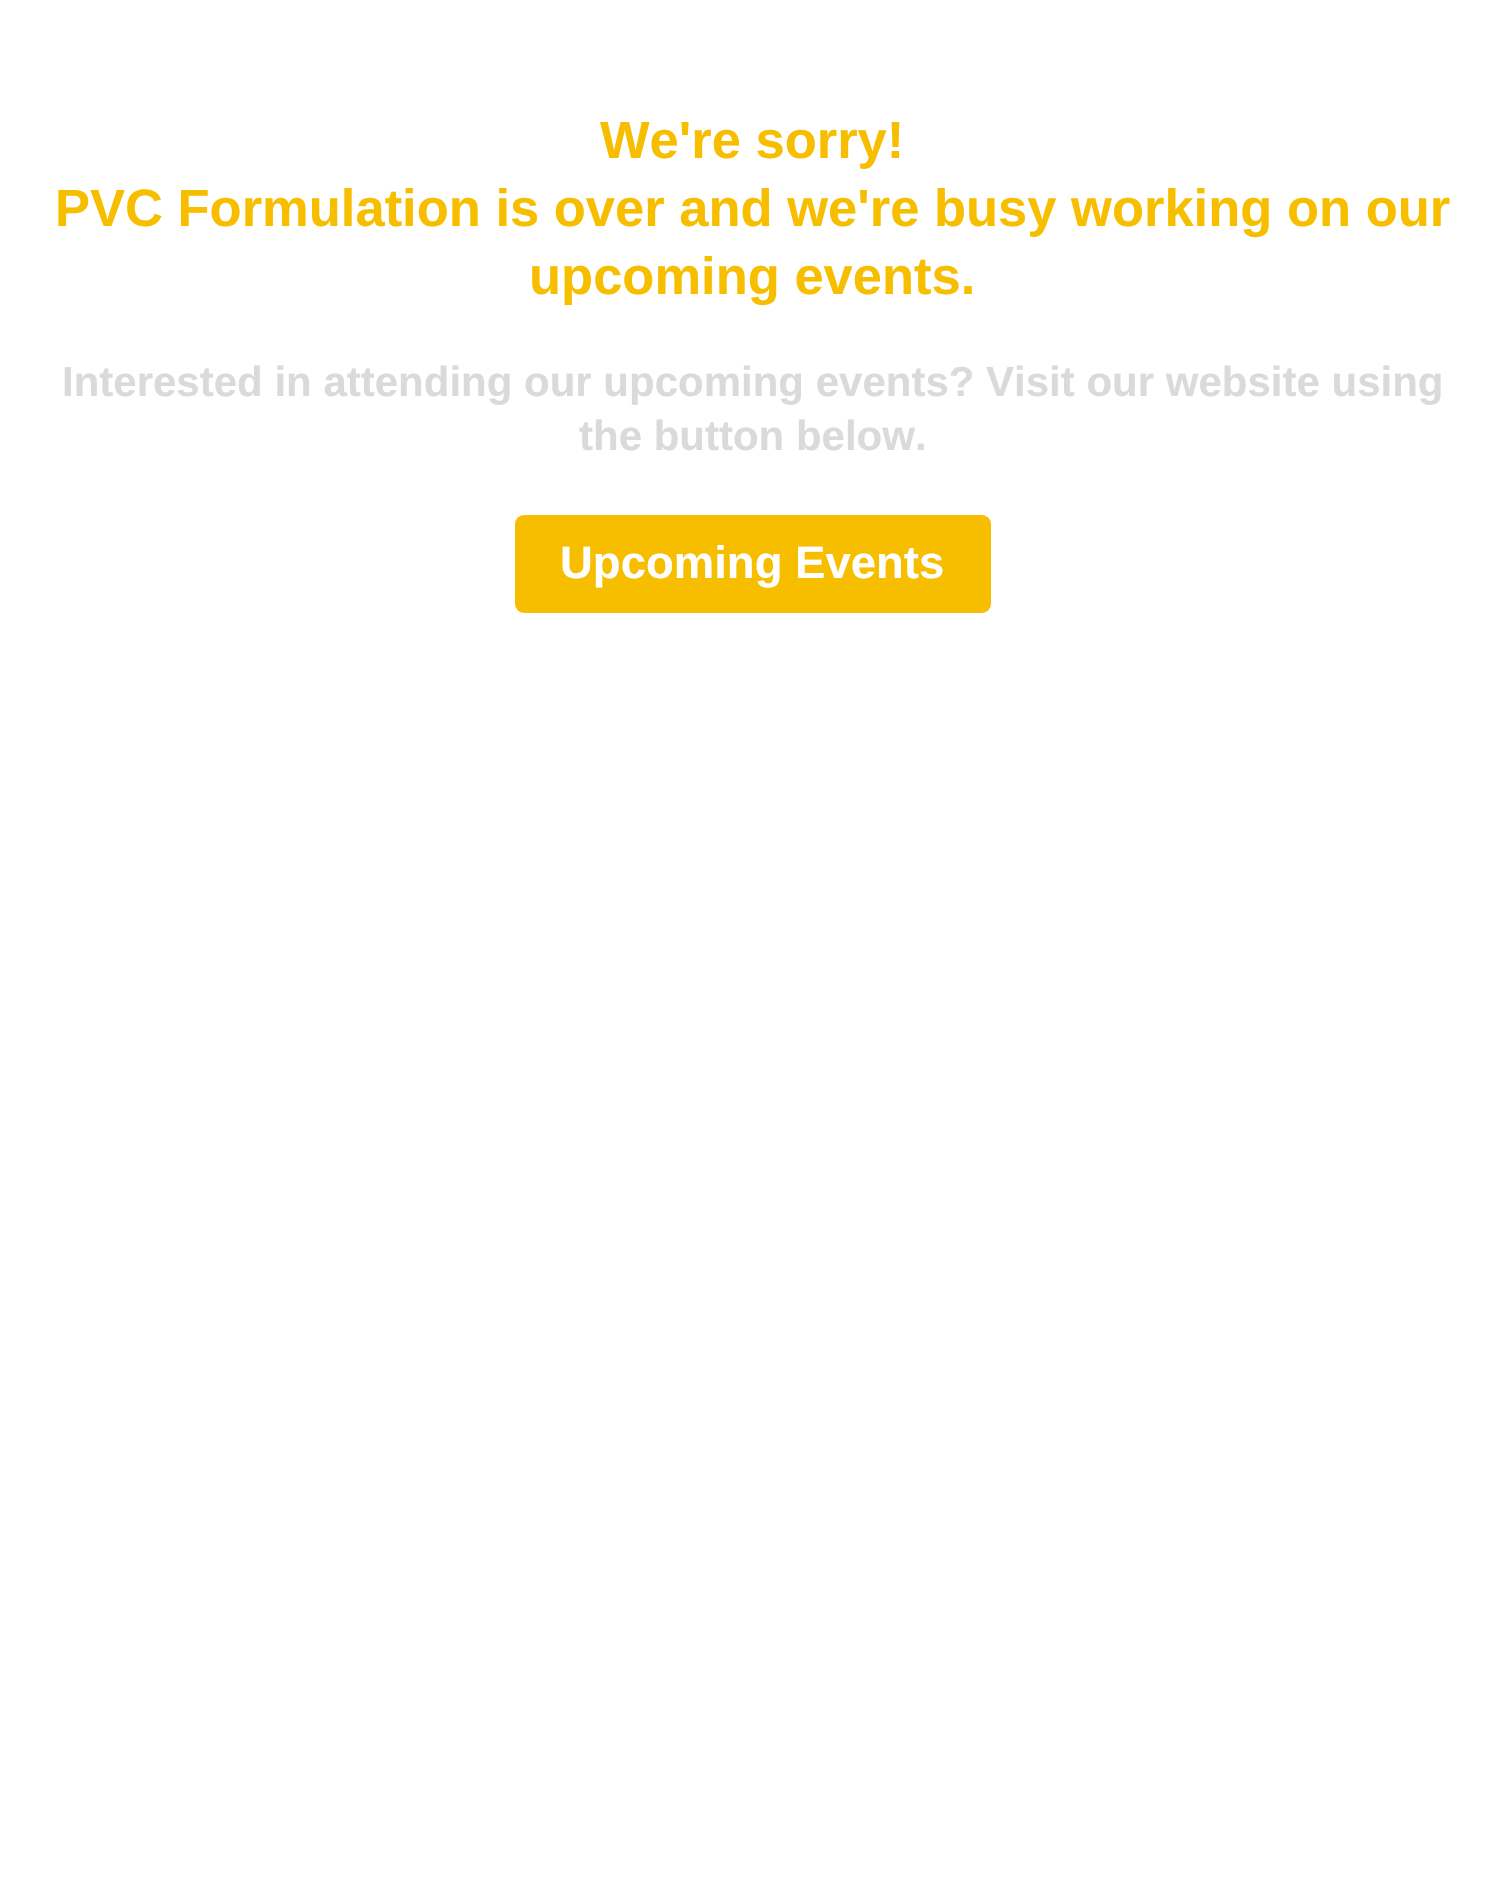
void draw(SkCanvas* canvas) {
  SkPaint paint;
  paint.setAntiAlias(true);
  auto face = [&](const char* family, int weight, float size, bool italic = false) {
    SkFontStyle style(weight, SkFontStyle::kNormal_Width,
      italic ? SkFontStyle::kItalic_Slant : SkFontStyle::kUpright_Slant);
    SkFont result(fontMgr->matchFamilyStyle(family, style), size);
    result.setSubpixel(true);
    return result;
  };
  canvas->clear(0xffffffff);
  paint.setColor(0xfff7be00);
  canvas->drawRoundRect(SkRect::MakeXYWH(516, 516, 474, 96), 8, 8, paint);
  paint.setStroke(true);
  paint.setStrokeWidth(2);
  canvas->drawRoundRect(SkRect::MakeXYWH(516, 516, 474, 96), 8, 8, paint);
  auto f0 = face("Liberation Sans", 700, 52.5f);
  paint.setStroke(false);
  {
    const struct { const char* s; float x, y; } items[] = {
      {"We're sorry!", 600, 158},
      {"PVC Formulation is over and we're busy working on our", 55, 226},
      {"upcoming events.", 529, 294},
    };
    for (auto [s, x, y] : items) {
      canvas->drawString(s, x, y, f0, paint);
    }
  }
  auto f1 = face("Liberation Sans", 700, 42);
  paint.setColor(0xffdadada);
  canvas->drawString("Interested in attending our upcoming events? Visit our website using", 62, 396, f1, paint);
  canvas->drawString("the button below.", 579, 450, f1, paint);
  auto f2 = face("Liberation Sans", 700, 45.5f);
  paint.setColor(0xffffffff);
  canvas->drawString("Upcoming Events", 560, 578, f2, paint);
}
